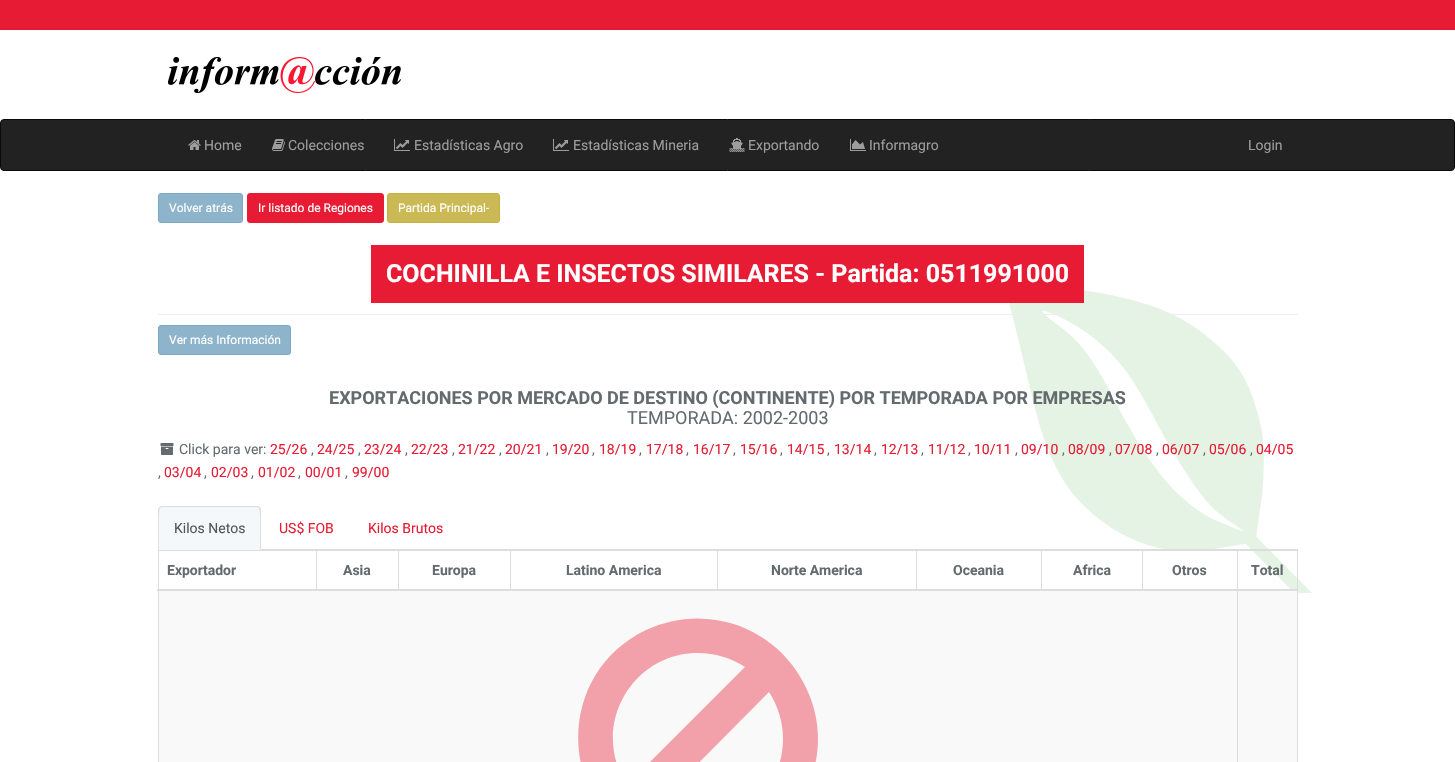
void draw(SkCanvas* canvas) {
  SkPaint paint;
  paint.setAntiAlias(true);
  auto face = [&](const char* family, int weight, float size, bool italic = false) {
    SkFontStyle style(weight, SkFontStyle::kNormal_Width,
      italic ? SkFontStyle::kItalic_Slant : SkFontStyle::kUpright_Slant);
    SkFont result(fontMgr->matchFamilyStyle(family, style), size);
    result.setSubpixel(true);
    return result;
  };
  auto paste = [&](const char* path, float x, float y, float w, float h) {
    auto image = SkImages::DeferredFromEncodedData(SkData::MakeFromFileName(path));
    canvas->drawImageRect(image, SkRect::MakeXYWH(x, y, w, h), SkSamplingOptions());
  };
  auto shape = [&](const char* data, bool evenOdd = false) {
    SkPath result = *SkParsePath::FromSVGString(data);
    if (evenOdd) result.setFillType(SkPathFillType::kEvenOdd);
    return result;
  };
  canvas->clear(0xffffffff);
  paint.setColor(0xffe71c34);
  canvas->drawRect(SkRect::MakeXYWH(0, 0, 1455, 30), paint);
  paste("img/1.png", 168, 57, 233, 36);
  paint.setColor(0xff222222);
  canvas->drawRoundRect(SkRect::MakeXYWH(0.5f, 119.5f, 1454, 51), 3.5f, 3.5f, paint);
  paint.setStroke(true);
  paint.setStrokeWidth(1);
  paint.setColor(0xff090909);
  canvas->drawRoundRect(SkRect::MakeXYWH(0.5f, 119.5f, 1454, 51), 3.5f, 3.5f, paint);
  paste("img/2.png", 188, 140, 13, 10);
  paste("img/3.png", 272, 139, 13, 12);
  paste("img/4.png", 394, 139, 16, 12);
  paste("img/4.png", 553, 139, 16, 12);
  paste("img/5.png", 729, 138, 16, 14);
  paste("img/6.png", 850, 139, 16, 12);
  paint.setStroke(false);
  paint.setColor(0xff8eb4cb);
  canvas->drawRoundRect(SkRect::MakeXYWH(158.5f, 193.5f, 84, 29), 2.5f, 2.5f, paint);
  paint.setStroke(true);
  paint.setColor(0xff7da8c3);
  canvas->drawRoundRect(SkRect::MakeXYWH(158.5f, 193.5f, 84, 29), 2.5f, 2.5f, paint);
  paint.setStroke(false);
  paint.setColor(0xffe71c34);
  canvas->drawRoundRect(SkRect::MakeXYWH(247.5f, 193.5f, 136, 29), 2.5f, 2.5f, paint);
  paint.setStroke(true);
  canvas->drawRoundRect(SkRect::MakeXYWH(247.5f, 193.5f, 136, 29), 2.5f, 2.5f, paint);
  paint.setStroke(false);
  paint.setColor(0xffcbb956);
  canvas->drawRoundRect(SkRect::MakeXYWH(387.5f, 193.5f, 112, 29), 2.5f, 2.5f, paint);
  paint.setStroke(true);
  paint.setColor(0xffc5b143);
  canvas->drawRoundRect(SkRect::MakeXYWH(387.5f, 193.5f, 112, 29), 2.5f, 2.5f, paint);
  paste("img/7.png", 1009, 290, 303, 303);
  paint.setStroke(false);
  paint.setColor(0xffe71c34);
  canvas->drawRect(SkRect::MakeXYWH(371, 245, 713, 58), paint);
  paint.setColor(0xffeeeeee);
  canvas->drawRect(SkRect::MakeXYWH(158, 314, 1140, 1), paint);
  paint.setColor(0xff8eb4cb);
  canvas->drawRoundRect(SkRect::MakeXYWH(158.5f, 325.5f, 132, 29), 2.5f, 2.5f, paint);
  paint.setStroke(true);
  paint.setColor(0xff7da8c3);
  canvas->drawRoundRect(SkRect::MakeXYWH(158.5f, 325.5f, 132, 29), 2.5f, 2.5f, paint);
  paste("img/8.png", 160, 443, 14, 12);
  paint.setStroke(false);
  paint.setColor(0xffdddddd);
  canvas->drawRect(SkRect::MakeXYWH(261, 549, 1037, 1), paint);
  paint.setColor(0xfff5f8fa);
  canvas->drawPath(shape("M162 506H257C259 506 261 508 261 510V550H158V510C158 508 160 506 162 506Z"), paint);
  paint.setColor(0xffdddddd);
  canvas->drawPath(shape("M162 506L159 507L160 508L162 507H257L259 508L260 507L257 506Z"), paint);
  canvas->drawPath(shape("M261 550V510C261 509 260 508 260 507L259 508C261 510 260 544 260 549Z"), paint);
  canvas->drawPath(shape("M158 550L159 549C159 544 158 510 160 508L159 507L158 510Z"), paint);
  {
    const struct { float x, y, w, h; SkColor color; } items[] = {
      {158, 550, 1140, 1, 0xffdddddd},
      {1297, 550, 1, 212, 0xffdddddd},
      {158, 550, 1, 212, 0xffdddddd},
      {159, 591, 1138, 171, 0xfff9f9f9},
      {1237, 550, 1, 212, 0xffdddddd},
    };
    for (auto [x, y, w, h, color] : items) {
      paint.setColor(color);
      canvas->drawRect(SkRect::MakeXYWH(x, y, w, h), paint);
    }
  }
  paint.setColor(0xfff2a1aa);
  canvas->drawPath(shape("M783 739C783 722 778 706 769 692L652 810C708 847 783 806 783 739ZM627 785L745 667C731 658 715 653 698 653C630 653 590 729 627 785ZM808 692C835 753 805 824 745 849C717 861 685 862 657 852C558 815 550 676 646 630C668 620 692 616 716 620C757 626 792 654 808 692Z"), paint);
  {
    const struct { float x, y, w, h; SkColor color; } items[] = {
      {316, 550, 1, 41, 0xffdddddd},
      {398, 550, 1, 41, 0xffdddddd},
      {510, 550, 1, 41, 0xffdddddd},
      {717, 550, 1, 41, 0xffdddddd},
      {916, 550, 1, 41, 0xffdddddd},
      {1041, 550, 1, 41, 0xffdddddd},
      {1142, 550, 1, 41, 0xffdddddd},
      {157, 589, 1141, 2, 0xffdddddd},
    };
    for (auto [x, y, w, h, color] : items) {
      paint.setColor(color);
      canvas->drawRect(SkRect::MakeXYWH(x, y, w, h), paint);
    }
  }
  auto f0 = face("Roboto", 400, 14);
  paint.setColor(0xff9d9d9d);
  {
    const struct { const char* s; float x, y; } items[] = {
      {"Home", 204, 150},
      {"Colecciones", 288, 150},
      {"Estadísticas Agro", 414, 150},
      {"Estadísticas Mineria", 573, 150},
      {"Exportando", 748, 150},
      {"Informagro", 869, 150},
      {"Login", 1248, 150},
    };
    for (auto [s, x, y] : items) {
      canvas->drawString(s, x, y, f0, paint);
    }
  }
  auto f1 = face("Roboto", 400, 12);
  paint.setColor(0xffffffff);
  {
    const struct { const char* s; float x, y; } items[] = {
      {"Volver atrás", 169, 212},
      {"Ir listado de Regiones", 258, 212},
      {"Partida Principal-", 398, 212},
    };
    for (auto [s, x, y] : items) {
      canvas->drawString(s, x, y, f1, paint);
    }
  }
  auto f2 = face("Roboto", 700, 25);
  canvas->drawString("COCHINILLA E INSECTOS SIMILARES - Partida: 0511991000", 386, 282, f2, paint);
  canvas->drawString("Ver más Información", 169, 344, f1, paint);
  auto f3 = face("Roboto", 700, 18);
  paint.setColor(0xff636b6f);
  canvas->drawString("EXPORTACIONES POR MERCADO DE DESTINO (CONTINENTE) POR TEMPORADA POR EMPRESAS", 329, 404, f3, paint);
  auto f4 = face("Roboto", 400, 18);
  canvas->drawString("TEMPORADA: 2002-2003", 627, 424, f4, paint);
  canvas->drawString("Click para ver:", 179, 454, f0, paint);
  paint.setColor(0xffe71c34);
  canvas->drawString("25/26", 270, 454, f0, paint);
  paint.setColor(0xff636b6f);
  canvas->drawString(",", 311, 454, f0, paint);
  paint.setColor(0xffe71c34);
  canvas->drawString("24/25", 317, 454, f0, paint);
  paint.setColor(0xff636b6f);
  canvas->drawString(",", 358, 454, f0, paint);
  paint.setColor(0xffe71c34);
  canvas->drawString("23/24", 364, 454, f0, paint);
  paint.setColor(0xff636b6f);
  canvas->drawString(",", 405, 454, f0, paint);
  paint.setColor(0xffe71c34);
  canvas->drawString("22/23", 411, 454, f0, paint);
  paint.setColor(0xff636b6f);
  canvas->drawString(",", 452, 454, f0, paint);
  paint.setColor(0xffe71c34);
  canvas->drawString("21/22", 458, 454, f0, paint);
  paint.setColor(0xff636b6f);
  canvas->drawString(",", 499, 454, f0, paint);
  paint.setColor(0xffe71c34);
  canvas->drawString("20/21", 505, 454, f0, paint);
  paint.setColor(0xff636b6f);
  canvas->drawString(",", 546, 454, f0, paint);
  paint.setColor(0xffe71c34);
  canvas->drawString("19/20", 552, 454, f0, paint);
  paint.setColor(0xff636b6f);
  canvas->drawString(",", 592, 454, f0, paint);
  paint.setColor(0xffe71c34);
  canvas->drawString("18/19", 599, 454, f0, paint);
  paint.setColor(0xff636b6f);
  canvas->drawString(",", 639, 454, f0, paint);
  paint.setColor(0xffe71c34);
  canvas->drawString("17/18", 646, 454, f0, paint);
  paint.setColor(0xff636b6f);
  canvas->drawString(",", 686, 454, f0, paint);
  paint.setColor(0xffe71c34);
  canvas->drawString("16/17", 693, 454, f0, paint);
  paint.setColor(0xff636b6f);
  canvas->drawString(",", 733, 454, f0, paint);
  paint.setColor(0xffe71c34);
  canvas->drawString("15/16", 740, 454, f0, paint);
  paint.setColor(0xff636b6f);
  canvas->drawString(",", 780, 454, f0, paint);
  paint.setColor(0xffe71c34);
  canvas->drawString("14/15", 787, 454, f0, paint);
  paint.setColor(0xff636b6f);
  canvas->drawString(",", 827, 454, f0, paint);
  paint.setColor(0xffe71c34);
  canvas->drawString("13/14", 834, 454, f0, paint);
  paint.setColor(0xff636b6f);
  canvas->drawString(",", 874, 454, f0, paint);
  paint.setColor(0xffe71c34);
  canvas->drawString("12/13", 881, 454, f0, paint);
  paint.setColor(0xff636b6f);
  canvas->drawString(",", 921, 454, f0, paint);
  paint.setColor(0xffe71c34);
  canvas->drawString("11/12", 928, 454, f0, paint);
  paint.setColor(0xff636b6f);
  canvas->drawString(",", 968, 454, f0, paint);
  paint.setColor(0xffe71c34);
  canvas->drawString("10/11", 974, 454, f0, paint);
  paint.setColor(0xff636b6f);
  canvas->drawString(",", 1015, 454, f0, paint);
  paint.setColor(0xffe71c34);
  canvas->drawString("09/10", 1021, 454, f0, paint);
  paint.setColor(0xff636b6f);
  canvas->drawString(",", 1062, 454, f0, paint);
  paint.setColor(0xffe71c34);
  canvas->drawString("08/09", 1068, 454, f0, paint);
  paint.setColor(0xff636b6f);
  canvas->drawString(",", 1109, 454, f0, paint);
  paint.setColor(0xffe71c34);
  canvas->drawString("07/08", 1115, 454, f0, paint);
  paint.setColor(0xff636b6f);
  canvas->drawString(",", 1156, 454, f0, paint);
  paint.setColor(0xffe71c34);
  canvas->drawString("06/07", 1162, 454, f0, paint);
  paint.setColor(0xff636b6f);
  canvas->drawString(",", 1203, 454, f0, paint);
  paint.setColor(0xffe71c34);
  canvas->drawString("05/06", 1209, 454, f0, paint);
  paint.setColor(0xff636b6f);
  canvas->drawString(",", 1250, 454, f0, paint);
  paint.setColor(0xffe71c34);
  canvas->drawString("04/05", 1256, 454, f0, paint);
  paint.setColor(0xff636b6f);
  canvas->drawString(",", 158, 477, f0, paint);
  paint.setColor(0xffe71c34);
  canvas->drawString("03/04", 164, 477, f0, paint);
  paint.setColor(0xff636b6f);
  canvas->drawString(",", 204, 477, f0, paint);
  paint.setColor(0xffe71c34);
  canvas->drawString("02/03", 211, 477, f0, paint);
  paint.setColor(0xff636b6f);
  canvas->drawString(",", 251, 477, f0, paint);
  paint.setColor(0xffe71c34);
  canvas->drawString("01/02", 258, 477, f0, paint);
  paint.setColor(0xff636b6f);
  canvas->drawString(",", 298, 477, f0, paint);
  paint.setColor(0xffe71c34);
  canvas->drawString("00/01", 305, 477, f0, paint);
  paint.setColor(0xff636b6f);
  canvas->drawString(",", 345, 477, f0, paint);
  paint.setColor(0xffe71c34);
  canvas->drawString("99/00", 352, 477, f0, paint);
  paint.setColor(0xff555555);
  canvas->drawString("Kilos Netos", 174, 533, f0, paint);
  paint.setColor(0xffe71c34);
  canvas->drawString("US$ FOB", 279, 533, f0, paint);
  canvas->drawString("Kilos Brutos", 368, 533, f0, paint);
  auto f5 = face("Roboto", 700, 14);
  paint.setColor(0xff636b6f);
  {
    const struct { const char* s; float x, y; } items[] = {
      {"Exportador", 167, 575},
      {"Asia", 343, 575},
      {"Europa", 432, 575},
      {"Latino America", 566, 575},
      {"Norte America", 771, 575},
      {"Oceania", 953, 575},
      {"Africa", 1073, 575},
      {"Otros", 1172, 575},
      {"Total", 1251, 575},
    };
    for (auto [s, x, y] : items) {
      canvas->drawString(s, x, y, f5, paint);
    }
  }
}
